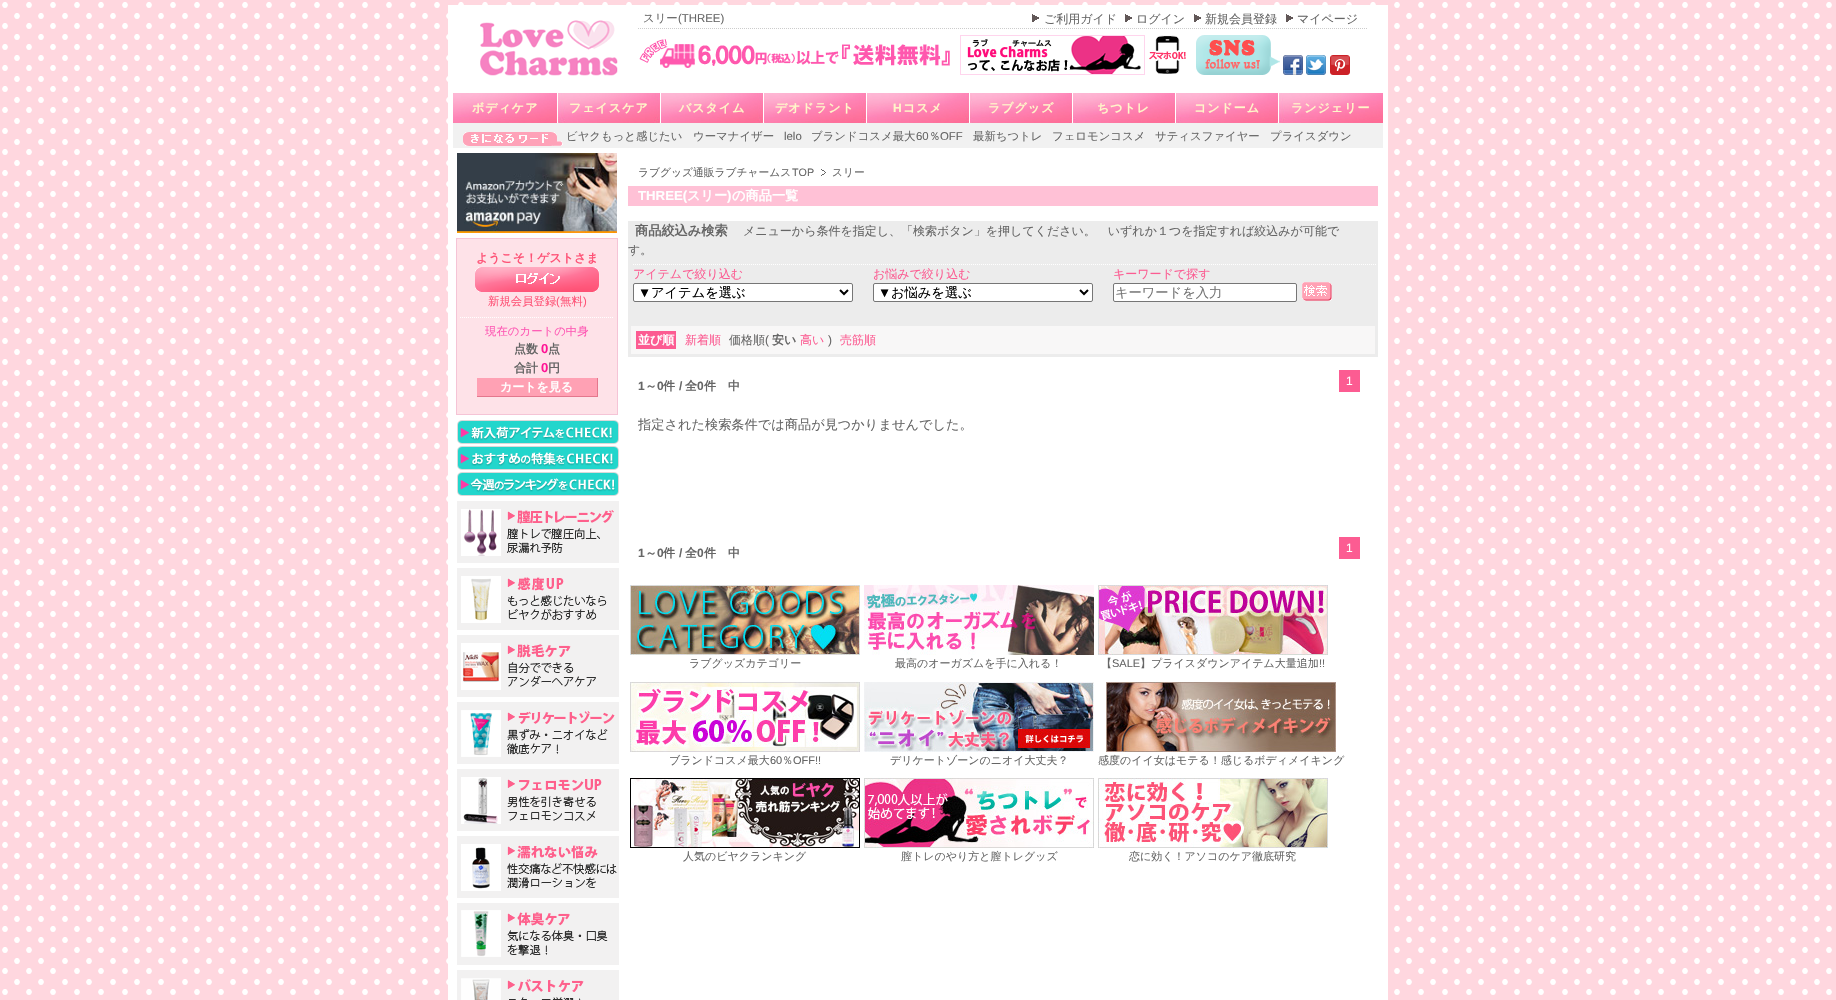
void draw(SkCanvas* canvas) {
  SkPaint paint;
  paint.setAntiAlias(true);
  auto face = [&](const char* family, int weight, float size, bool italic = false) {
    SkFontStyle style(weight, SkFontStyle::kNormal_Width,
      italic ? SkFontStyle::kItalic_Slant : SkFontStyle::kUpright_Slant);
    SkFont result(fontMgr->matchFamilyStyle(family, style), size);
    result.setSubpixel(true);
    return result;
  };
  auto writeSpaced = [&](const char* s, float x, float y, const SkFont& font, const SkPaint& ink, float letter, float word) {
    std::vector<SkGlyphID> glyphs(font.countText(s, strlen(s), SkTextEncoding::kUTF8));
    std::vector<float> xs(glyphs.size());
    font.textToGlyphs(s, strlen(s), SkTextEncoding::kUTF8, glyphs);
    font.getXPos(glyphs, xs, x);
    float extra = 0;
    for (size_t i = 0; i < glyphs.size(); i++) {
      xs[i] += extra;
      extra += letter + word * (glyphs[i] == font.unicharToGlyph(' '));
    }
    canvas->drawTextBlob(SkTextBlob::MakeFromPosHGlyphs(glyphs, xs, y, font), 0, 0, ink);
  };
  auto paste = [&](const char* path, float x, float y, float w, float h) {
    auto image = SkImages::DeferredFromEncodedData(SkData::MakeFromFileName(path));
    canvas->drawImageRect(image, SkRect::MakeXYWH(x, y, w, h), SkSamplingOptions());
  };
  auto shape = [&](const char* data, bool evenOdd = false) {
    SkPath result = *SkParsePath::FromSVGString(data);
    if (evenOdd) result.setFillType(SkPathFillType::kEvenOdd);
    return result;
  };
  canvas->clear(0xffffffff);
  paste("img/1.png", 0, 0, 1836, 1000);
  paint.setColor(0xffffffff);
  canvas->drawRect(SkRect::MakeXYWH(448, 5, 940, 995), paint);
  paint.setStroke(true);
  paint.setStrokeWidth(1);
  paint.setColor(0xffcccccc);
  paint.setPathEffect(SkDashPathEffect::Make({{1, 1}}, 0));
  canvas->drawPath(shape("M638 28.5H1368"), paint);
  paint.setPathEffect(nullptr);
  paste("img/2.png", 1032, 14, 7, 8);
  paste("img/2.png", 1125, 14, 7, 8);
  paste("img/2.png", 1194, 14, 7, 8);
  paste("img/2.png", 1286, 14, 7, 8);
  paste("img/3.png", 480, 20, 138, 56);
  paste("img/4.png", 639, 39, 311, 29);
  paste("img/5.png", 960, 35, 185, 40);
  paste("img/6.png", 1149, 35, 37, 39);
  paste("img/7.png", 1196, 35, 84, 40);
  paste("img/8.png", 1283, 55, 20, 20);
  paste("img/9.png", 1306, 55, 20, 20);
  paste("img/10.png", 1330, 55, 20, 20);
  paste("img/11.png", 453, 93, 104, 30);
  paste("img/12.png", 558, 93, 102, 30);
  paste("img/13.png", 661, 93, 102, 30);
  paste("img/14.png", 764, 93, 102, 30);
  paste("img/15.png", 867, 93, 102, 30);
  paste("img/16.png", 970, 93, 102, 30);
  paste("img/17.png", 1073, 93, 102, 30);
  paste("img/18.png", 1176, 93, 102, 30);
  paste("img/19.png", 1279, 93, 104, 30);
  paint.setStroke(false);
  paint.setColor(0xfff1f1f1);
  canvas->drawRect(SkRect::MakeXYWH(453, 123, 930, 25), paint);
  paste("img/20.png", 463, 132, 100, 14);
  paste("img/21.png", 457, 153, 160, 80);
  paint.setColor(0xfffee2e8);
  canvas->drawRect(SkRect::MakeXYWH(456.5f, 238.5f, 161, 176), paint);
  paint.setStroke(true);
  paint.setColor(0xfff5c4d6);
  canvas->drawRect(SkRect::MakeXYWH(456.5f, 238.5f, 161, 176), paint);
  paste("img/22.png", 475, 267, 124, 25);
  paint.setColor(0xffffffff);
  paint.setPathEffect(SkDashPathEffect::Make({{1, 1}}, 0));
  canvas->drawPath(shape("M460 317.5H614"), paint);
  paint.setPathEffect(nullptr);
  paint.setStroke(false);
  {
    const struct { float x, y, w, h; SkColor color; } items[] = {
      {477, 378, 120, 18, 0xffffa1b4},
      {597, 378, 1, 19, 0xffe4778d},
      {477, 396, 121, 1, 0xffe4778d},
    };
    for (auto [x, y, w, h, color] : items) {
      paint.setColor(color);
      canvas->drawRect(SkRect::MakeXYWH(x, y, w, h), paint);
    }
  }
  paste("img/23.png", 457, 420, 162, 24);
  paste("img/24.png", 457, 446, 162, 24);
  paste("img/25.png", 457, 472, 162, 24);
  paste("img/26.png", 457, 501, 162, 62);
  paste("img/27.png", 457, 568, 162, 62);
  paste("img/28.png", 457, 635, 162, 62);
  paste("img/29.png", 457, 702, 162, 62);
  paste("img/30.png", 457, 769, 162, 62);
  paste("img/31.png", 457, 836, 162, 62);
  paste("img/32.png", 457, 903, 162, 62);
  paste("img/33.png", 457, 970, 162, 30);
  paste("img/34.png", 821, 169, 5, 7);
  paint.setColor(0xffffc1d6);
  canvas->drawRect(SkRect::MakeXYWH(628, 186, 750, 20), paint);
  paint.setColor(0xffececec);
  canvas->drawRect(SkRect::MakeXYWH(628, 221, 750, 105), paint);
  paint.setStroke(true);
  paint.setColor(0xffffffff);
  paint.setPathEffect(SkDashPathEffect::Make({{1, 1}}, 0));
  canvas->drawPath(shape("M633 264.5H1377"), paint);
  paint.setPathEffect(nullptr);
  paint.setStroke(false);
  canvas->drawRoundRect(SkRect::MakeXYWH(633.5f, 283.5f, 219, 18), 1.5f, 1.5f, paint);
  paint.setStroke(true);
  paint.setColor(0xff767676);
  canvas->drawRoundRect(SkRect::MakeXYWH(633.5f, 283.5f, 219, 18), 1.5f, 1.5f, paint);
  paint.setStrokeWidth(2);
  paint.setColor(0xff000000);
  canvas->drawPath(shape("M840 290L844 294L848 290"), paint);
  paint.setStroke(false);
  paint.setColor(0xffffffff);
  canvas->drawRoundRect(SkRect::MakeXYWH(873.5f, 283.5f, 219, 18), 1.5f, 1.5f, paint);
  paint.setStroke(true);
  paint.setStrokeWidth(1);
  paint.setColor(0xff767676);
  canvas->drawRoundRect(SkRect::MakeXYWH(873.5f, 283.5f, 219, 18), 1.5f, 1.5f, paint);
  paint.setStrokeWidth(2);
  paint.setColor(0xff000000);
  canvas->drawPath(shape("M1080 290L1084 294L1088 290"), paint);
  paint.setStroke(false);
  paint.setColor(0xffffffff);
  canvas->drawRoundRect(SkRect::MakeXYWH(1113.5f, 283.5f, 183, 18), 1.5f, 1.5f, paint);
  paint.setStroke(true);
  paint.setStrokeWidth(1);
  paint.setColor(0xff767676);
  canvas->drawRoundRect(SkRect::MakeXYWH(1113.5f, 283.5f, 183, 18), 1.5f, 1.5f, paint);
  paste("img/35.png", 1302, 282, 30, 19);
  paint.setStroke(false);
  {
    const struct { float x, y, w, h; SkColor color; } items[] = {
      {631, 326, 744, 28, 0xfff8f7f7},
      {1375, 326, 3, 31, 0xffececec},
      {628, 354, 750, 3, 0xffececec},
      {628, 326, 3, 31, 0xffececec},
      {636, 331, 40, 18, 0xfffc5c92},
      {1339, 370, 21, 22, 0xfffc5c92},
      {1339, 537, 21, 22, 0xfffc5c92},
    };
    for (auto [x, y, w, h, color] : items) {
      paint.setColor(color);
      canvas->drawRect(SkRect::MakeXYWH(x, y, w, h), paint);
    }
  }
  paste("img/36.png", 630, 585, 230, 70);
  paste("img/37.png", 864, 585, 230, 70);
  paste("img/38.png", 1098, 585, 230, 70);
  paste("img/39.png", 630, 682, 230, 70);
  paste("img/40.png", 864, 682, 230, 70);
  paste("img/41.png", 1106, 682, 230, 70);
  paste("img/42.png", 630, 778, 230, 70);
  paste("img/43.png", 864, 778, 230, 70);
  paste("img/44.png", 1098, 778, 230, 70);
  auto f0 = face("WenQuanYi Zen Hei", 500, 11.4f);
  paint.setColor(0xff666666);
  canvas->drawString("スリー", 643, 22, f0, paint);
  auto f1 = face("Liberation Sans", 400, 11.4f);
  canvas->drawString("(THREE)", 678, 22, f1, paint);
  auto f2 = face("WenQuanYi Zen Hei", 500, 12);
  {
    const struct { const char* s; float x, y; } items[] = {
      {"ご利用ガイド", 1044, 23},
      {"ログイン", 1136, 23},
      {"新規会員登録", 1205, 23},
      {"マイページ", 1297, 23},
    };
    for (auto [s, x, y] : items) {
      canvas->drawString(s, x, y, f2, paint);
    }
  }
  auto f3 = face("WenQuanYi Zen Hei", 700, 12);
  paint.setColor(0xfffff7c9);
  {
    const struct { const char* s; float x, y; } items[] = {
      {"ボディケア", 472, 112},
      {"フェイスケア", 569, 112},
      {"バスタイム", 679, 112},
      {"デオドラント", 775, 112},
    };
    for (auto [s, x, y] : items) {
      writeSpaced(s, x, y, f3, paint, 1, 0);
    }
  }
  auto f4 = face("Liberation Sans", 700, 12);
  writeSpaced("H", 893, 112, f4, paint, 1, 0);
  {
    const struct { const char* s; float x, y; } items[] = {
      {"コスメ", 903, 112},
      {"ラブグッズ", 988, 112},
      {"ちつトレ", 1097, 112},
      {"コンドーム", 1194, 112},
      {"ランジェリー", 1291, 112},
    };
    for (auto [s, x, y] : items) {
      writeSpaced(s, x, y, f3, paint, 1, 0);
    }
  }
  paint.setColor(0xff666666);
  canvas->drawString("ビヤクもっと感じたい", 566, 140, f0, paint);
  canvas->drawString("ウーマナイザー", 693, 140, f0, paint);
  canvas->drawString("lelo", 784, 140, f1, paint);
  canvas->drawString("ブランドコスメ最大", 811, 140, f0, paint);
  canvas->drawString("60", 916, 140, f1, paint);
  canvas->drawString("％", 929, 140, f0, paint);
  canvas->drawString("OFF", 940, 140, f1, paint);
  {
    const struct { const char* s; float x, y; } items[] = {
      {"最新ちつトレ", 973, 140},
      {"フェロモンコスメ", 1052, 140},
      {"サティスファイヤー", 1155, 140},
      {"プライスダウン", 1270, 140},
    };
    for (auto [s, x, y] : items) {
      canvas->drawString(s, x, y, f0, paint);
    }
  }
  paint.setColor(0xfffe5276);
  canvas->drawString("ようこそ！ゲストさま", 476, 262, f3, paint);
  canvas->drawString("新規会員登録", 488, 305, f0, paint);
  canvas->drawString("(", 556, 305, f1, paint);
  canvas->drawString("無料", 560, 305, f0, paint);
  canvas->drawString(")", 583, 305, f1, paint);
  paint.setColor(0xffff58b4);
  canvas->drawString("現在のカートの中身", 485, 335, f0, paint);
  paint.setColor(0xff666666);
  canvas->drawString("点数", 514, 353, f3, paint);
  auto f5 = face("Liberation Sans", 700, 13);
  paint.setColor(0xfffe1395);
  canvas->drawString("0", 541, 353, f5, paint);
  paint.setColor(0xff666666);
  canvas->drawString("点", 548, 353, f3, paint);
  canvas->drawString("合計", 514, 372, f3, paint);
  paint.setColor(0xfffe1395);
  canvas->drawString("0", 541, 372, f5, paint);
  paint.setColor(0xff666666);
  canvas->drawString("円", 548, 372, f3, paint);
  paint.setColor(0xffffffff);
  canvas->drawString("カートを見る", 500, 391, f3, paint);
  auto f6 = face("WenQuanYi Zen Hei", 500, 10.75f);
  paint.setColor(0xff666666);
  canvas->drawString("ラブグッズ通販ラブチャームス", 638, 176, f6, paint);
  auto f7 = face("Liberation Sans", 400, 10.75f);
  canvas->drawString("TOP", 792, 176, f7, paint);
  canvas->drawString("スリー", 832, 176, f6, paint);
  auto f8 = face("Liberation Sans", 700, 13.2f);
  paint.setColor(0xffffffff);
  canvas->drawString("THREE(", 638, 200, f8, paint);
  auto f9 = face("WenQuanYi Zen Hei", 700, 13.2f);
  canvas->drawString("スリー", 687, 200, f9, paint);
  canvas->drawString(")", 727, 200, f8, paint);
  canvas->drawString("の商品一覧", 732, 200, f9, paint);
  paint.setColor(0xff666666);
  canvas->drawString("商品絞込み検索", 635, 235, f9, paint);
  canvas->drawString("メニューから条件を指定し、「検索ボタン」を押してください。　いずれか１つを指定すれば絞込みが可能で", 743, 235, f2, paint);
  canvas->drawString("す。", 628, 254, f2, paint);
  paint.setColor(0xfffc5c92);
  canvas->drawString("アイテムで絞り込む", 633, 278, f2, paint);
  auto f10 = face("Liberation Sans", 400, 13.25f);
  paint.setColor(0xff000000);
  canvas->drawString("▼", 638, 297, f10, paint);
  auto f11 = face("WenQuanYi Zen Hei", 500, 13.25f);
  canvas->drawString("アイテムを選ぶ", 651, 297, f11, paint);
  paint.setColor(0xfffc5c92);
  canvas->drawString("お悩みで絞り込む", 873, 278, f2, paint);
  paint.setColor(0xff000000);
  canvas->drawString("▼", 878, 297, f10, paint);
  canvas->drawString("お悩みを選ぶ", 891, 297, f11, paint);
  paint.setColor(0xfffc5c92);
  canvas->drawString("キーワードで探す", 1113, 278, f2, paint);
  paint.setColor(0xff757575);
  canvas->drawString("キーワードを入力", 1115, 297, f11, paint);
  paint.setColor(0xffffffff);
  canvas->drawString("並び順", 638, 344, f3, paint);
  paint.setColor(0xfffc5c92);
  canvas->drawString("新着順", 685, 344, f2, paint);
  paint.setColor(0xff666666);
  canvas->drawString("価格順", 729, 344, f2, paint);
  auto f12 = face("Liberation Sans", 400, 12);
  canvas->drawString("(", 765, 344, f12, paint);
  canvas->drawString("安い", 772, 344, f3, paint);
  paint.setColor(0xfffc5c92);
  canvas->drawString("高い", 800, 344, f2, paint);
  paint.setColor(0xff666666);
  canvas->drawString(")", 828, 344, f12, paint);
  paint.setColor(0xfffc5c92);
  canvas->drawString("売筋順", 840, 344, f2, paint);
  paint.setColor(0xff666666);
  canvas->drawString("1", 638, 390, f4, paint);
  canvas->drawString("～", 645, 390, f3, paint);
  canvas->drawString("0", 657, 390, f4, paint);
  canvas->drawString("件", 663, 390, f3, paint);
  canvas->drawString("/", 679, 390, f4, paint);
  canvas->drawString("全", 685, 390, f3, paint);
  canvas->drawString("0", 697, 390, f4, paint);
  canvas->drawString("件　中", 704, 390, f3, paint);
  paint.setColor(0xffffffff);
  canvas->drawString("1", 1346, 385, f12, paint);
  auto f13 = face("WenQuanYi Zen Hei", 500, 13.2f);
  paint.setColor(0xff666666);
  canvas->drawString("指定された検索条件では商品が見つかりませんでした。", 638, 429, f13, paint);
  canvas->drawString("1", 638, 557, f4, paint);
  canvas->drawString("～", 645, 557, f3, paint);
  canvas->drawString("0", 657, 557, f4, paint);
  canvas->drawString("件", 663, 557, f3, paint);
  canvas->drawString("/", 679, 557, f4, paint);
  canvas->drawString("全", 685, 557, f3, paint);
  canvas->drawString("0", 697, 557, f4, paint);
  canvas->drawString("件　中", 704, 557, f3, paint);
  paint.setColor(0xffffffff);
  canvas->drawString("1", 1346, 552, f12, paint);
  auto f14 = face("WenQuanYi Zen Hei", 500, 11);
  paint.setColor(0xff666666);
  {
    const struct { const char* s; float x, y; } items[] = {
      {"ラブグッズカテゴリー", 689, 667},
      {"最高のオーガズムを手に入れる！", 895, 667},
      {"【", 1101, 667},
    };
    for (auto [s, x, y] : items) {
      canvas->drawString(s, x, y, f14, paint);
    }
  }
  auto f15 = face("Liberation Sans", 400, 11);
  canvas->drawString("SALE", 1112, 667, f15, paint);
  canvas->drawString("】プライスダウンアイテム大量追加", 1140, 667, f14, paint);
  canvas->drawString("!!", 1319, 667, f15, paint);
  canvas->drawString("ブランドコスメ最大", 669, 764, f14, paint);
  canvas->drawString("60", 770, 764, f15, paint);
  canvas->drawString("％", 782, 764, f14, paint);
  canvas->drawString("OFF!!", 793, 764, f15, paint);
  {
    const struct { const char* s; float x, y; } items[] = {
      {"デリケートゾーンのニオイ大丈夫？", 890, 764},
      {"感度のイイ女はモテる！感じるボディメイキング", 1098, 764},
      {"人気のビヤクランキング", 683, 860},
      {"膣トレのやり方と膣トレグッズ", 901, 860},
      {"恋に効く！アソコのケア徹底研究", 1129, 860},
    };
    for (auto [s, x, y] : items) {
      canvas->drawString(s, x, y, f14, paint);
    }
  }
}
